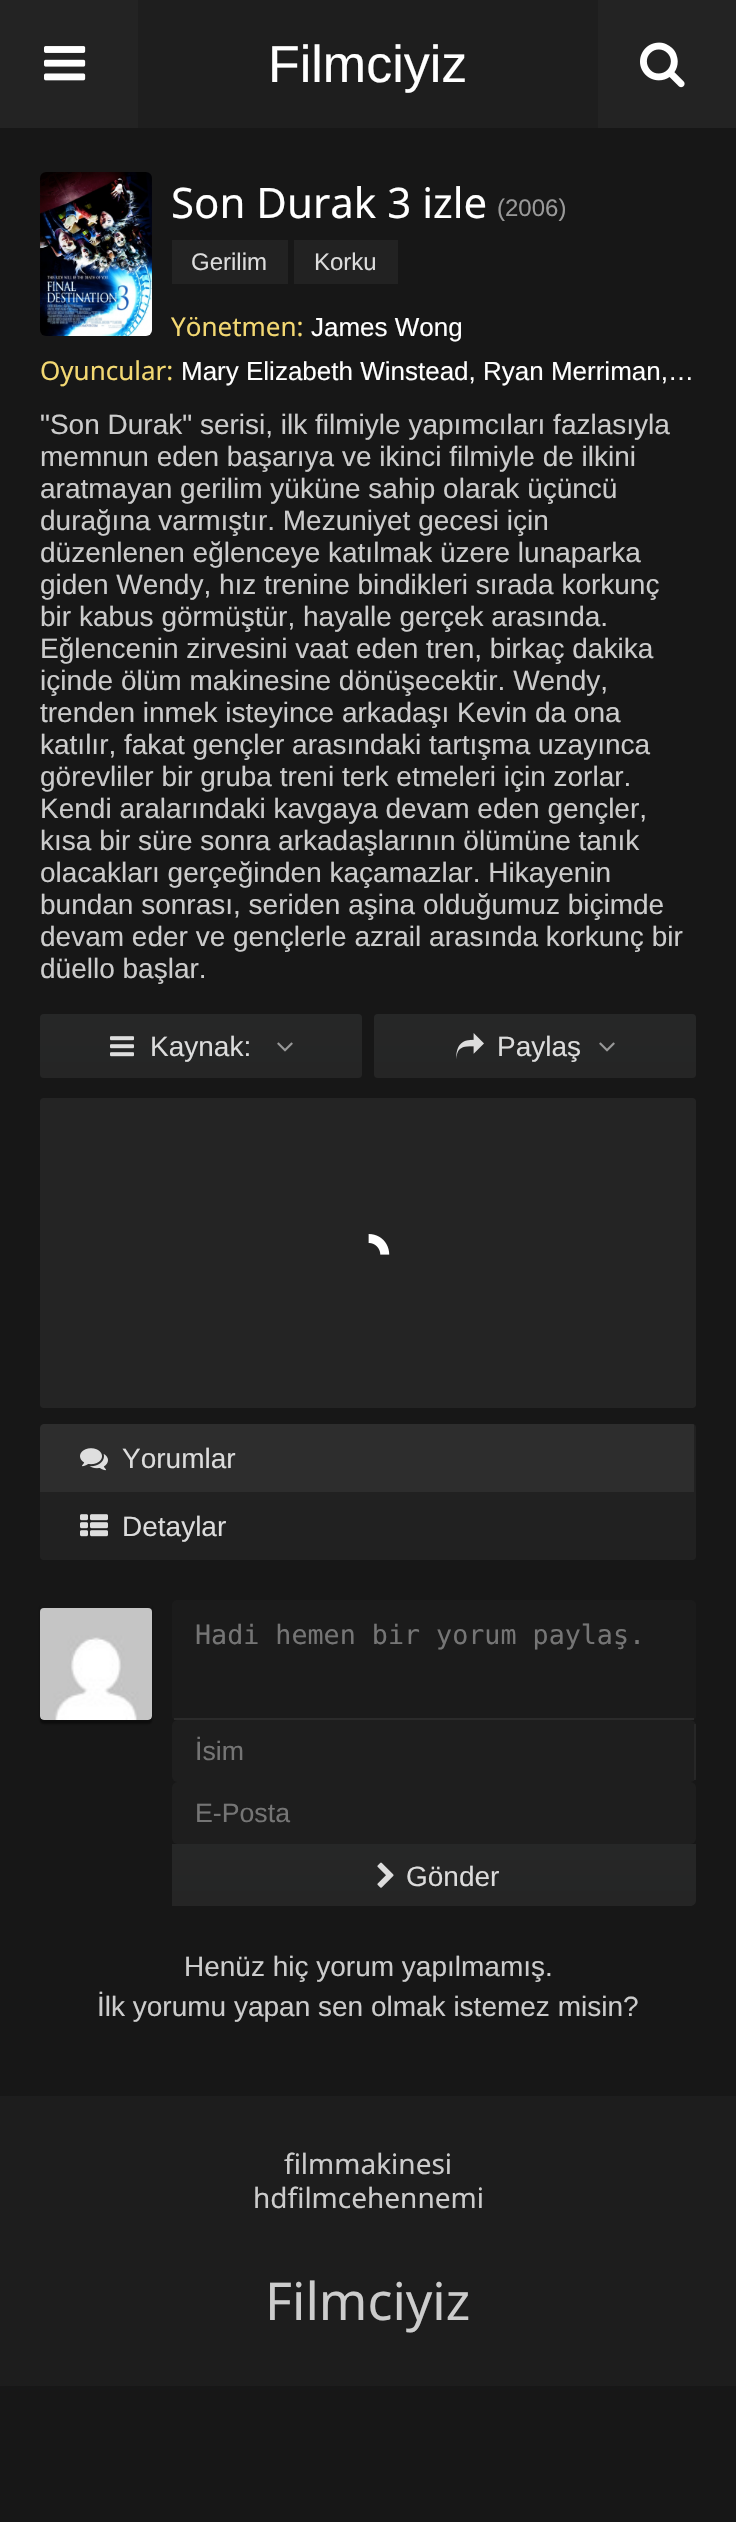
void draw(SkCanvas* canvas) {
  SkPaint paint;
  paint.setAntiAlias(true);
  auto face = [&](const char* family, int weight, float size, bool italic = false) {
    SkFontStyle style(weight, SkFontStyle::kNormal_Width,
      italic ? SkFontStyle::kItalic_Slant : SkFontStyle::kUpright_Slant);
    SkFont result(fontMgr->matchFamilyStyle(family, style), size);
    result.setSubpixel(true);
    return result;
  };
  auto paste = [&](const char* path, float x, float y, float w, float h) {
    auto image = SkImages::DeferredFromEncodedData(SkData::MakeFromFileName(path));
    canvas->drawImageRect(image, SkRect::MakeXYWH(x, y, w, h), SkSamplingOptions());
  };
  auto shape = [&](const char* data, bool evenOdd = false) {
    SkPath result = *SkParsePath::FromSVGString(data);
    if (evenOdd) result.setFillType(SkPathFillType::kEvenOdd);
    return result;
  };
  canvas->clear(0xff171717);
  paint.setColor(0xff1e1e1e);
  canvas->drawRect(SkRect::MakeXYWH(138, 0, 460, 128), paint);
  paint.setColor(0xff232323);
  canvas->drawRect(SkRect::MakeXYWH(0, 0, 138, 128), paint);
  paste("img/1.png", 44, 46, 42, 35);
  canvas->drawRect(SkRect::MakeXYWH(598, 0, 138, 128), paint);
  paste("img/2.png", 640, 42, 45, 46);
  paste("img/3.png", 40, 172, 112, 164);
  paint.setColor(0xff222222);
  canvas->drawRect(SkRect::MakeXYWH(172, 240, 116, 44), paint);
  canvas->drawRect(SkRect::MakeXYWH(294, 240, 104, 44), paint);
  {
    const SkColor colors[] = {0xff262727, 0xff252525};
    const float stops[] = {0, 1};
    const SkPoint ends[] = {{201, 1014}, {201, 1078}};
    paint.setShader(SkGradientShader::MakeLinear(ends, colors, stops, 2, SkTileMode::kClamp));
    paint.setAlpha(255);
  }
  canvas->drawRoundRect(SkRect::MakeXYWH(40, 1014, 322, 64), 4, 4, paint);
  paste("img/4.png", 110, 1036, 24, 21);
  paste("img/5.png", 277, 1042, 16, 10);
  {
    const SkColor colors[] = {0xff262727, 0xff252525};
    const float stops[] = {0, 1};
    const SkPoint ends[] = {{535, 1014}, {535, 1078}};
    paint.setShader(SkGradientShader::MakeLinear(ends, colors, stops, 2, SkTileMode::kClamp));
    paint.setAlpha(255);
  }
  canvas->drawRoundRect(SkRect::MakeXYWH(374, 1014, 322, 64), 4, 4, paint);
  paste("img/6.png", 456, 1033, 28, 26);
  paste("img/5.png", 599, 1042, 16, 10);
  paint.setShader(nullptr);
  paint.setColor(0xff242424);
  canvas->drawRoundRect(SkRect::MakeXYWH(40, 1098, 656, 310), 4, 4, paint);
  paste("img/7.png", 368, 1234, 22, 21);
  paint.setColor(0xff212121);
  canvas->drawRoundRect(SkRect::MakeXYWH(40, 1424, 656, 136), 4, 4, paint);
  canvas->save();
  canvas->clipPath(shape("M44 1424H692C694 1424 696 1426 696 1428V1556C696 1558 694 1560 692 1560H44C42 1560 40 1558 40 1556V1428C40 1426 42 1424 44 1424Z"), true);
  paint.setColor(0xff2d2d2d);
  canvas->drawPath(shape("M44 1424H694V1492H40V1428C40 1426 42 1424 44 1424Z"), paint);
  canvas->restore();
  paste("img/8.png", 80, 1448, 28, 23);
  paste("img/9.png", 80, 1514, 28, 23);
  canvas->save();
  canvas->clipPath(shape("M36 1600H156V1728H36ZM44 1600H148C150 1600 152 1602 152 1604V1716C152 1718 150 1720 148 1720H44C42 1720 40 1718 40 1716V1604C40 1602 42 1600 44 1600Z", true), true);
  paint.setColor(0x70000000);
  paint.setMaskFilter(SkMaskFilter::MakeBlur(kNormal_SkBlurStyle, 1));
  canvas->drawRoundRect(SkRect::MakeXYWH(40, 1604, 112, 120), 4, 4, paint);
  paint.setMaskFilter(nullptr);
  canvas->restore();
  paste("img/10.png", 40, 1608, 112, 112);
  paint.setColor(0xff1b1b1b);
  canvas->drawPath(shape("M178 1600H690C693.5 1600 696 1602.5 696 1606V1716C696 1718 694 1720 692 1720H176C174 1720 172 1718 172 1716V1606C172 1602.5 174.5 1600 178 1600Z"), paint);
  paint.setColor(0xff2b2b2b);
  canvas->drawRect(SkRect::MakeXYWH(174, 1718, 520, 2), paint);
  paint.setColor(0xff1e1e1e);
  canvas->drawRoundRect(SkRect::MakeXYWH(172, 1720, 524, 62), 6, 6, paint);
  paint.setColor(0xb32b2b2b);
  canvas->drawRect(SkRect::MakeXYWH(694, 1724, 2, 56), paint);
  paint.setColor(0xff1e1e1e);
  canvas->drawRoundRect(SkRect::MakeXYWH(172, 1782, 524, 62), 6, 6, paint);
  {
    const SkColor colors[] = {0xff262727, 0xff252525};
    const float stops[] = {0, 1};
    const SkPoint ends[] = {{434, 1844}, {434, 1906}};
    paint.setShader(SkGradientShader::MakeLinear(ends, colors, stops, 2, SkTileMode::kClamp));
    paint.setAlpha(255);
  }
  canvas->drawPath(shape("M172 1844H696V1900C696 1903.5 693.5 1906 690 1906H172Z"), paint);
  paste("img/11.png", 377, 1862, 17, 26);
  paint.setShader(nullptr);
  paint.setColor(0xff1d1d1d);
  canvas->drawRect(SkRect::MakeXYWH(0, 2096, 736, 290), paint);
  auto f0 = face("Liberation Sans", 400, 52);
  paint.setColor(0xffffffff);
  canvas->drawString("Filmciyiz", 268, 82, f0, paint);
  auto f1 = face("Noto Sans", 400, 42);
  canvas->drawString("Son Durak 3 izle", 171, 218, f1, paint);
  auto f2 = face("Liberation Sans", 400, 24);
  paint.setColor(0xff999999);
  canvas->drawString("(2006)", 497, 216, f2, paint);
  paint.setColor(0xffdcdcdc);
  canvas->drawString("Gerilim", 191, 270, f2, paint);
  canvas->drawString("Korku", 314, 270, f2, paint);
  auto f3 = face("Noto Sans", 400, 26);
  paint.setColor(0xfff3d872);
  canvas->drawString("Yönetmen:", 171, 336, f3, paint);
  auto f4 = face("Liberation Sans", 400, 26);
  paint.setColor(0xffffffff);
  canvas->drawString("James Wong", 311, 336, f4, paint);
  paint.setColor(0xfff3d872);
  canvas->drawString("Oyuncular:", 40, 380, f3, paint);
  paint.setColor(0xffffffff);
  canvas->drawString("Mary Elizabeth Winstead, Ryan Merriman,…", 181, 380, f4, paint);
  auto f5 = face("Liberation Sans", 400, 28);
  paint.setColor(0xffcccccc);
  {
    const struct { const char* s; float x, y; } items[] = {
      {"\"Son Durak\" serisi, ilk filmiyle yapımcıları fazlasıyla", 40, 434},
      {"memnun eden başarıya ve ikinci filmiyle de ilkini", 40, 466},
      {"aratmayan gerilim yüküne sahip olarak üçüncü", 40, 498},
      {"durağına varmıştır. Mezuniyet gecesi için", 40, 530},
      {"düzenlenen eğlenceye katılmak üzere lunaparka", 40, 562},
      {"giden Wendy, hız trenine bindikleri sırada korkunç", 40, 594},
      {"bir kabus görmüştür, hayalle gerçek arasında.", 40, 626},
      {"Eğlencenin zirvesini vaat eden tren, birkaç dakika", 40, 658},
      {"içinde ölüm makinesine dönüşecektir. Wendy,", 40, 690},
      {"trenden inmek isteyince arkadaşı Kevin da ona", 40, 722},
      {"katılır, fakat gençler arasındaki tartışma uzayınca", 40, 754},
      {"görevliler bir gruba treni terk etmeleri için zorlar.", 40, 786},
      {"Kendi aralarındaki kavgaya devam eden gençler,", 40, 818},
      {"kısa bir süre sonra arkadaşlarının ölümüne tanık", 40, 850},
      {"olacakları gerçeğinden kaçamazlar. Hikayenin", 40, 882},
      {"bundan sonrası, seriden aşina olduğumuz biçimde", 40, 914},
      {"devam eder ve gençlerle azrail arasında korkunç bir", 40, 946},
      {"düello başlar.", 40, 978},
    };
    for (auto [s, x, y] : items) {
      canvas->drawString(s, x, y, f5, paint);
    }
  }
  paint.setColor(0xffdcdcdc);
  {
    const struct { const char* s; float x, y; } items[] = {
      {"Kaynak:", 150, 1056},
      {"Paylaş", 497, 1056},
      {"Yorumlar", 122, 1468},
      {"Detaylar", 122, 1536},
    };
    for (auto [s, x, y] : items) {
      canvas->drawString(s, x, y, f5, paint);
    }
  }
  auto f6 = face("DejaVu Sans Mono", 400, 26.7f);
  paint.setColor(0xff757575);
  canvas->drawString("Hadi hemen bir yorum paylaş.", 195, 1644, f6, paint);
  auto f7 = face("Liberation Sans", 400, 26.7f);
  canvas->drawString("İsim", 195, 1760, f7, paint);
  canvas->drawString("E-Posta", 195, 1822, f7, paint);
  paint.setColor(0xffdcdcdc);
  canvas->drawString("Gönder", 406, 1886, f5, paint);
  paint.setColor(0xffcccccc);
  canvas->drawString("Henüz hiç yorum yapılmamış.", 184, 1976, f5, paint);
  canvas->drawString("İlk yorumu yapan sen olmak istemez misin?", 97, 2016, f5, paint);
  auto f8 = face("Noto Sans", 400, 28);
  canvas->drawString("filmmakinesi", 284, 2174, f8, paint);
  canvas->drawString("hdfilmcehennemi", 253, 2208, f8, paint);
  auto f9 = face("Noto Sans", 400, 52);
  canvas->drawString("Filmciyiz", 265, 2320, f9, paint);
}
